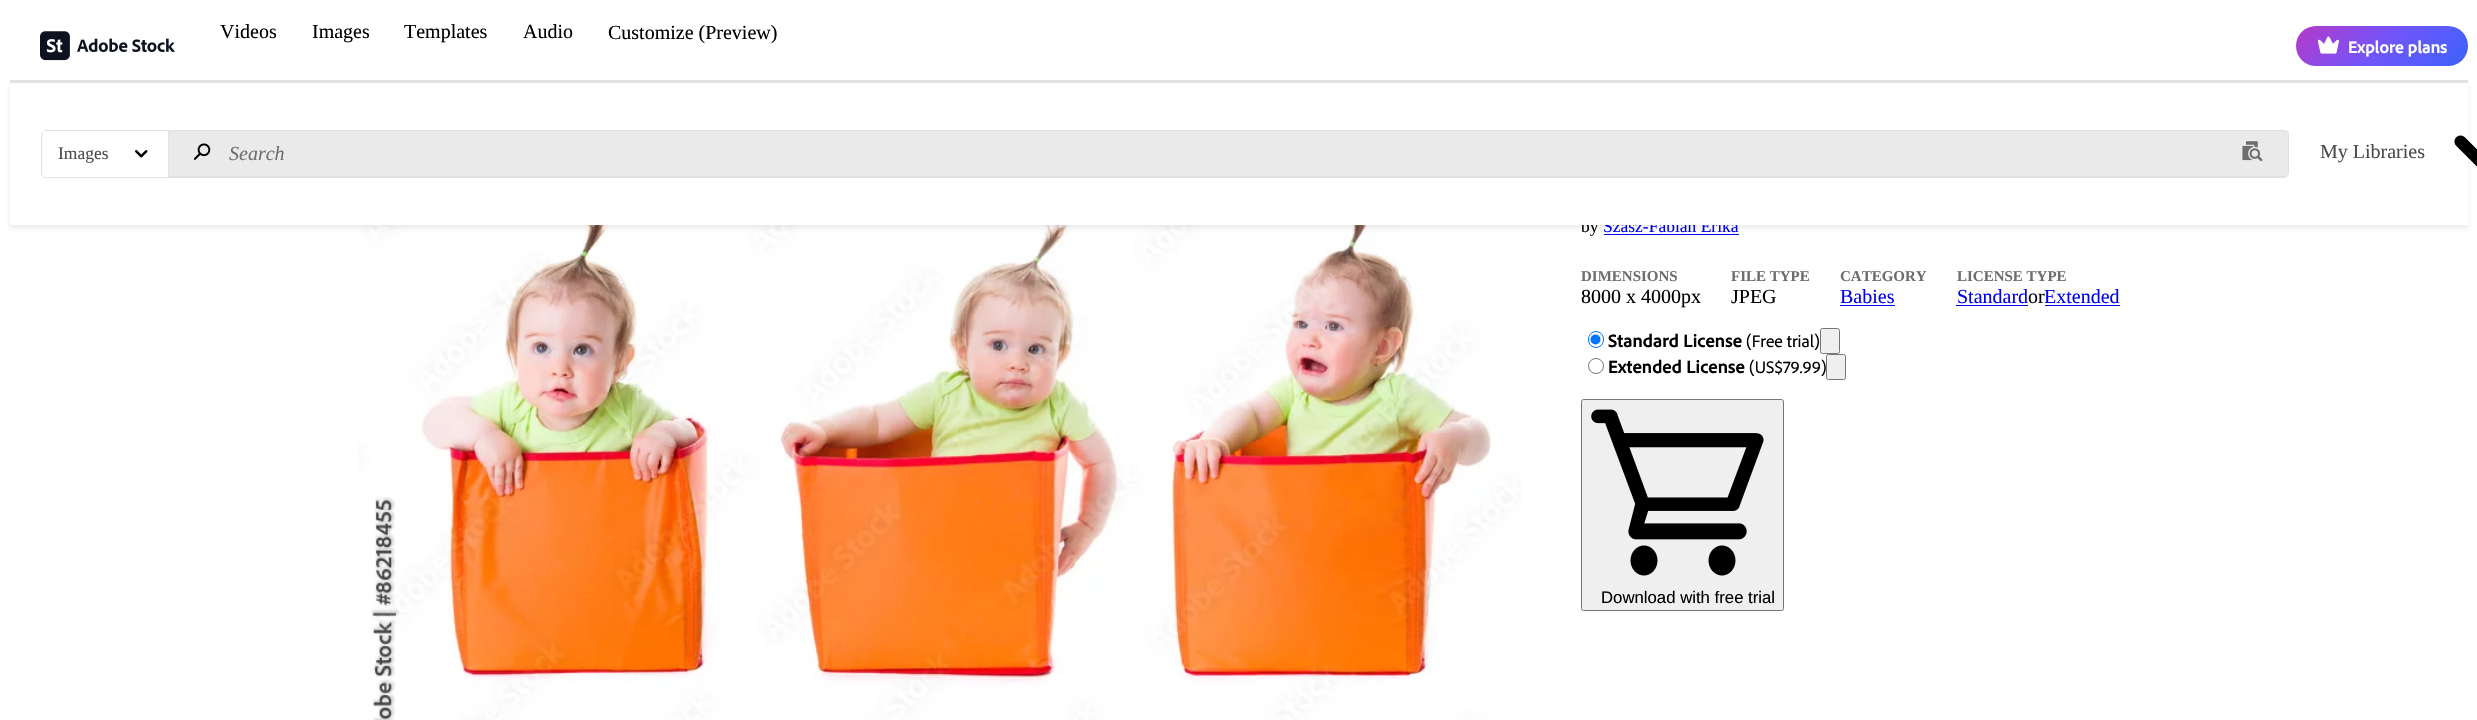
void draw(SkCanvas* canvas) {
  SkPaint paint;
  paint.setAntiAlias(true);
  auto face = [&](const char* family, int weight, float size, bool italic = false) {
    SkFontStyle style(weight, SkFontStyle::kNormal_Width,
      italic ? SkFontStyle::kItalic_Slant : SkFontStyle::kUpright_Slant);
    SkFont result(fontMgr->matchFamilyStyle(family, style), size);
    result.setSubpixel(true);
    return result;
  };
  auto paste = [&](const char* path, float x, float y, float w, float h) {
    auto image = SkImages::DeferredFromEncodedData(SkData::MakeFromFileName(path));
    canvas->drawImageRect(image, SkRect::MakeXYWH(x, y, w, h), SkSamplingOptions());
  };
  auto shape = [&](const char* data, bool evenOdd = false) {
    SkPath result = *SkParsePath::FromSVGString(data);
    if (evenOdd) result.setFillType(SkPathFillType::kEvenOdd);
    return result;
  };
  canvas->clear(0xffffffff);
  paste("img/7.png", 358, 225, 1163, 495);
  paint.setColor(0xff0000ee);
  canvas->drawRect(SkRect::MakeXYWH(1604, 234, 135, 1), paint);
  paint.setColor(0x1a343434);
  paint.setMaskFilter(SkMaskFilter::MakeBlur(kNormal_SkBlurStyle, 2.5f));
  canvas->drawRect(SkRect::MakeXYWH(10, 85, 2458, 143), paint);
  paint.setMaskFilter(nullptr);
  paint.setColor(0xffe1e1e1);
  canvas->drawRect(SkRect::MakeXYWH(10, 80, 2458, 3), paint);
  paste("img/1.png", 40, 31, 135, 30);
  {
    const SkColor colors[] = {0xffb539c8, 0xff7155fa, 0xff3b63fb};
    const float stops[] = {0, 0.5f, 1};
    const SkPoint ends[] = {{2329, -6.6f}, {2435, 99}};
    paint.setShader(SkGradientShader::MakeLinear(ends, colors, stops, 3, SkTileMode::kClamp));
    paint.setAlpha(255);
  }
  canvas->drawRoundRect(SkRect::MakeXYWH(2296, 26, 172, 40), 20, 20, paint);
  paste("img/2.png", 2317, 36, 22, 18);
  paint.setShader(nullptr);
  {
    const struct { float x, y, w, h; SkColor color; } items[] = {
      {1840, 305, 55, 1, 0xff0000ee},
      {1956, 305, 72, 1, 0xff0000ee},
      {2045, 305, 75, 1, 0xff0000ee},
    };
    for (auto [x, y, w, h, color] : items) {
      paint.setColor(color);
      canvas->drawRect(SkRect::MakeXYWH(x, y, w, h), paint);
    }
  }
  paint.setStroke(true);
  paint.setStrokeWidth(1);
  paint.setColor(0xff0075ff);
  canvas->drawRoundRect(SkRect::MakeXYWH(1588.5f, 331.5f, 15, 16), 7.5f, 7.5f, paint);
  paint.setStroke(false);
  canvas->drawCircle(1595.5f, 339.5f, 5, paint);
  paint.setColor(0xffefefef);
  canvas->drawRoundRect(SkRect::MakeXYWH(1820.5f, 328.5f, 19, 25), 2, 2, paint);
  paint.setStroke(true);
  paint.setColor(0xff767676);
  canvas->drawRoundRect(SkRect::MakeXYWH(1820.5f, 328.5f, 19, 25), 2, 2, paint);
  canvas->drawCircle(1596, 366, 7.5f, paint);
  paint.setStroke(false);
  paint.setColor(0xffefefef);
  canvas->drawRoundRect(SkRect::MakeXYWH(1826.5f, 354.5f, 19, 25), 2, 2, paint);
  paint.setStroke(true);
  paint.setColor(0xff767676);
  canvas->drawRoundRect(SkRect::MakeXYWH(1826.5f, 354.5f, 19, 25), 2, 2, paint);
  paint.setStroke(false);
  paint.setColor(0xffefefef);
  canvas->drawRoundRect(SkRect::MakeXYWH(1581.5f, 399.5f, 202, 211), 2, 2, paint);
  paint.setStroke(true);
  paint.setColor(0xff767676);
  canvas->drawRoundRect(SkRect::MakeXYWH(1581.5f, 399.5f, 202, 211), 2, 2, paint);
  paste("img/8.png", 1591, 409, 173, 167);
  auto f0 = face("Liberation Serif", 400, 20);
  paint.setStroke(false);
  paint.setColor(0xff000000);
  {
    const struct { const char* s; float x, y; } items[] = {
      {"Videos", 220, 38},
      {"Images", 312, 38},
      {"Templates", 404, 38},
      {"Audio", 523, 38},
      {"Customize (Preview)", 608, 39},
    };
    for (auto [s, x, y] : items) {
      canvas->drawString(s, x, y, f0, paint);
    }
  }
  auto f1 = face("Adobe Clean", 700, 17.5f);
  paint.setColor(0xffffffff);
  canvas->drawString("Explore plans", 2348, 53, f1, paint);
  auto f2 = face("Liberation Serif", 400, 17.5f);
  paint.setColor(0xff000000);
  canvas->drawString("by", 1581, 232, f2, paint);
  paint.setColor(0xff0000ee);
  canvas->drawString("Szasz-Fabian Erika", 1603, 232, f2, paint);
  paint.setColor(0xffffffff);
  canvas->drawRect(SkRect::MakeXYWH(10, 83, 2458, 142), paint);
  paste("img/6.png", 2454, 135, 23, 32);
  paint.setColor(0xff4b4b4b);
  canvas->drawString("My Libraries", 2320, 158, f0, paint);
  paint.setColor(0xffeaeaea);
  canvas->drawPath(shape("M169 131H2284C2286 131 2288 133 2288 135V172C2288 174 2286 176 2284 176H169Z"), paint);
  paint.setColor(0xffe1e1e1);
  canvas->drawPath(shape("M169 130H2284C2287 130 2289 132 2289 135V172C2289 175 2287 178 2284 178H169ZM169 131H2284C2286 131 2288 133 2288 135V172C2288 175 2286 176 2284 176H169Z", true), paint);
  paste("img/5.png", 2242, 141, 21, 20);
  paste("img/4.png", 194, 143, 17, 17);
  auto f3 = face("Liberation Serif", 400, 20, true);
  paint.setColor(0xff6e6e6e);
  canvas->drawString("Search", 229, 160, f3, paint);
  paint.setStroke(true);
  paint.setColor(0xffe1e1e1);
  canvas->drawPath(shape("M46 130.5H168.5V177.5H46C43.5 177.5 41.5 175.5 41.5 173V135C41.5 132.5 43.5 130.5 46 130.5Z"), paint);
  paste("img/3.png", 135, 150, 13, 8);
  paint.setStroke(false);
  paint.setColor(0xff4b4b4b);
  canvas->drawString("Images", 58, 159, f2, paint);
  paint.setColor(0xffffffff);
  canvas->drawRect(SkRect::MakeXYWH(43, 131, 2, 1), paint);
  auto f4 = face("Liberation Serif", 700, 15);
  paint.setColor(0xff6e6e6e);
  canvas->drawString("DIMENSIONS", 1581, 281, f4, paint);
  paint.setColor(0xff000000);
  canvas->drawString("8000 x 4000px", 1581, 303, f0, paint);
  paint.setColor(0xff6e6e6e);
  canvas->drawString("FILE TYPE", 1731, 281, f4, paint);
  paint.setColor(0xff000000);
  canvas->drawString("JPEG", 1731, 303, f0, paint);
  paint.setColor(0xff6e6e6e);
  canvas->drawString("CATEGORY", 1840, 281, f4, paint);
  paint.setColor(0xff0000ee);
  canvas->drawString("Babies", 1840, 303, f0, paint);
  paint.setColor(0xff6e6e6e);
  canvas->drawString("LICENSE TYPE", 1957, 281, f4, paint);
  paint.setColor(0xff0000ee);
  canvas->drawString("Standard", 1957, 303, f0, paint);
  paint.setColor(0xff000000);
  canvas->drawString("or", 2028, 303, f0, paint);
  paint.setColor(0xff0000ee);
  canvas->drawString("Extended", 2044, 303, f0, paint);
  auto f5 = face("Adobe Clean", 700, 18.75f);
  paint.setColor(0xff000000);
  canvas->drawString("Standard License", 1608, 347, f5, paint);
  auto f6 = face("Adobe Clean", 400, 17.5f);
  canvas->drawString("(Free trial)", 1746, 347, f6, paint);
  canvas->drawString("Extended License", 1608, 373, f5, paint);
  canvas->drawString("(US$79.99)", 1749, 373, f6, paint);
  auto f7 = face("Liberation Sans", 400, 16.75f);
  canvas->drawString("Download with free trial", 1601, 603, f7, paint);
}
